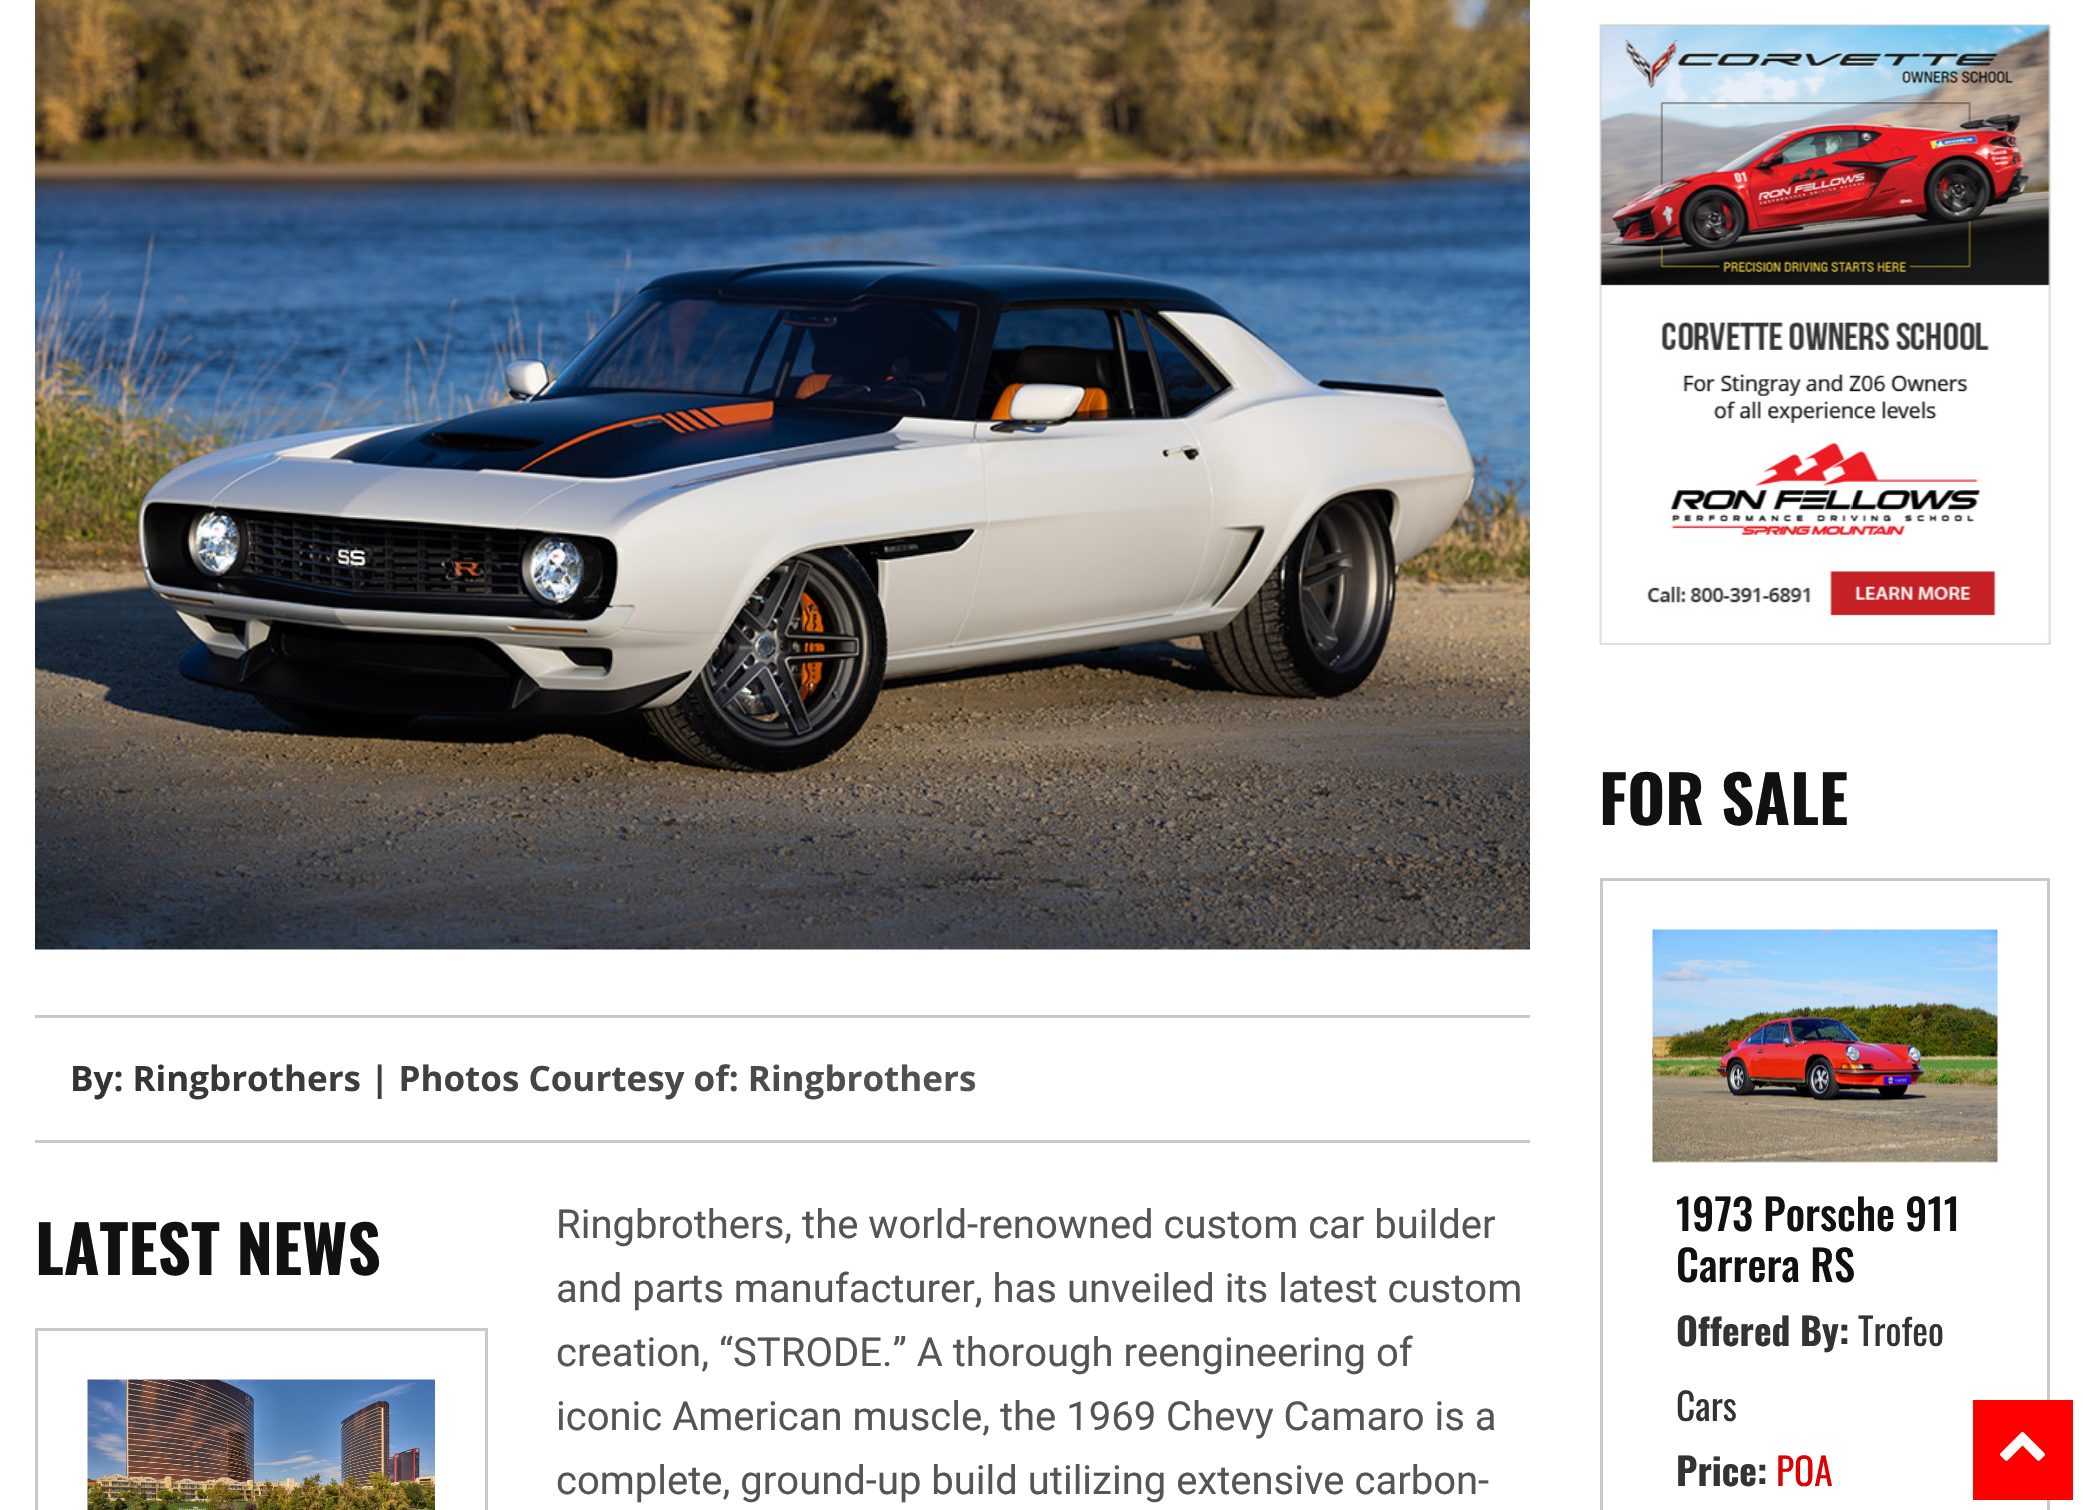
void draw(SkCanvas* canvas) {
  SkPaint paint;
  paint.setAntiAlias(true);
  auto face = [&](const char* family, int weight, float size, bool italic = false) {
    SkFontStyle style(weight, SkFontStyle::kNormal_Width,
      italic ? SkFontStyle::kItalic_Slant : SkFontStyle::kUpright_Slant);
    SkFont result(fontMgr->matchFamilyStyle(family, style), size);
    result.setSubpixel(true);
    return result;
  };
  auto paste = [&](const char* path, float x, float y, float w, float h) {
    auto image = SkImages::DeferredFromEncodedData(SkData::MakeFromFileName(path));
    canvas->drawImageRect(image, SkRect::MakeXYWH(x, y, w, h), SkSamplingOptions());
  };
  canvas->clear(0xffffffff);
  paste("img/1.png", 35, 0, 1495, 950);
  paint.setColor(0xffc9c9c9);
  canvas->drawRect(SkRect::MakeXYWH(35, 1015, 1495, 3), paint);
  canvas->drawRect(SkRect::MakeXYWH(35, 1140, 1495, 3), paint);
  paint.setStroke(true);
  paint.setStrokeWidth(3);
  canvas->drawRect(SkRect::MakeXYWH(36.5f, 1329.5f, 450, 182), paint);
  paste("img/2.png", 87, 1379, 348, 131);
  paste("img/3.png", 1599, 24, 452, 621);
  canvas->drawRect(SkRect::MakeXYWH(1601.5f, 879.5f, 447, 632), paint);
  paste("img/4.png", 1652, 929, 346, 234);
  paint.setStroke(false);
  paint.setColor(0xffff0000);
  canvas->drawRect(SkRect::MakeXYWH(1973, 1400, 100, 100), paint);
  paste("img/5.png", 2000, 1432, 45, 29);
  auto f0 = face("Open Sans", 700, 35);
  {
    const SkColor colors[] = {0xff666666, 0xff333333};
    const float stops[] = {0, 1};
    const SkPoint ends[] = {{1494, 1078}, {70, 1078}};
    paint.setShader(SkGradientShader::MakeLinear(ends, colors, stops, 2, SkTileMode::kClamp));
    paint.setAlpha(255);
  }
  canvas->drawString("By: Ringbrothers | Photos Courtesy of: Ringbrothers", 70, 1091, f0, paint);
  auto f1 = face("Oswald", 700, 65);
  paint.setShader(nullptr);
  paint.setColor(0xff111111);
  canvas->drawString("LATEST NEWS", 35, 1275, f1, paint);
  auto f2 = face("Roboto", 400, 40);
  paint.setColor(0xff555555);
  {
    const struct { const char* s; float x, y; } items[] = {
      {"Ringbrothers, the world-renowned custom car builder", 556, 1238},
      {"and parts manufacturer, has unveiled its latest custom", 556, 1302},
      {"creation, “STRODE.” A thorough reengineering of", 556, 1366},
      {"iconic American muscle, the 1969 Chevy Camaro is a", 556, 1430},
      {"complete, ground-up build utilizing extensive carbon-", 556, 1494},
    };
    for (auto [s, x, y] : items) {
      canvas->drawString(s, x, y, f2, paint);
    }
  }
  paint.setColor(0xff111111);
  canvas->drawString("FOR SALE", 1599, 825, f1, paint);
  auto f3 = face("Oswald", 500, 42.5f);
  canvas->drawString("1973 Porsche 911", 1676, 1231, f3, paint);
  canvas->drawString("Carrera RS", 1676, 1282, f3, paint);
  auto f4 = face("Oswald", 700, 37.5f);
  paint.setColor(0xff333333);
  canvas->drawString("Offered By:", 1676, 1346, f4, paint);
  auto f5 = face("Oswald", 400, 37.5f);
  canvas->drawString("Trofeo", 1858, 1346, f5, paint);
  canvas->drawString("Cars", 1676, 1421, f5, paint);
  canvas->drawString("Price:", 1676, 1486, f4, paint);
  paint.setColor(0xffdd0000);
  canvas->drawString("POA", 1776, 1486, f5, paint);
}
